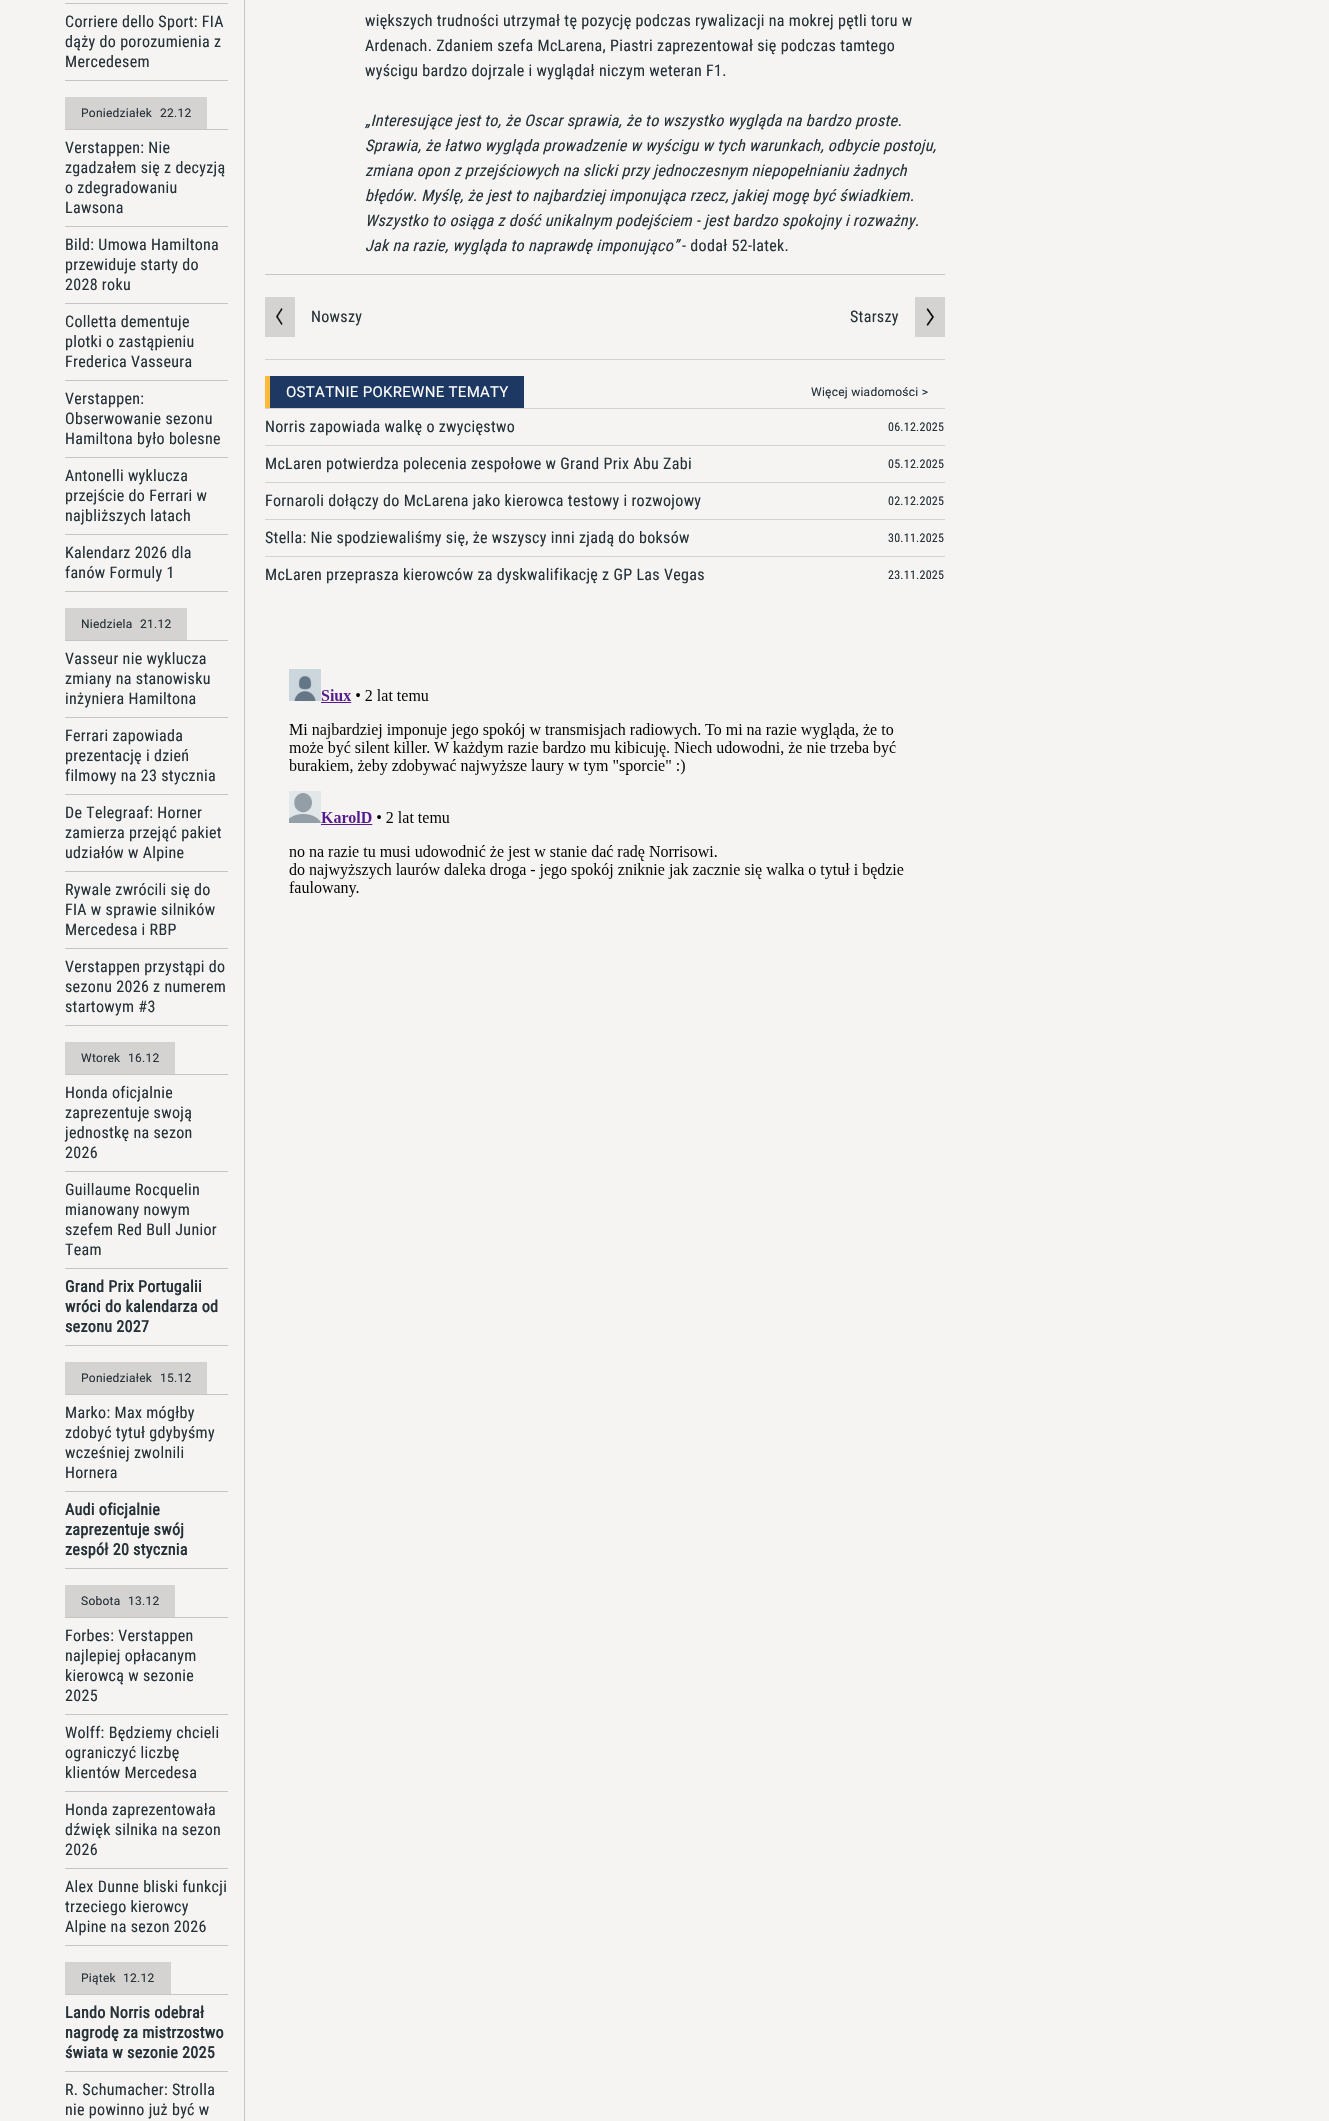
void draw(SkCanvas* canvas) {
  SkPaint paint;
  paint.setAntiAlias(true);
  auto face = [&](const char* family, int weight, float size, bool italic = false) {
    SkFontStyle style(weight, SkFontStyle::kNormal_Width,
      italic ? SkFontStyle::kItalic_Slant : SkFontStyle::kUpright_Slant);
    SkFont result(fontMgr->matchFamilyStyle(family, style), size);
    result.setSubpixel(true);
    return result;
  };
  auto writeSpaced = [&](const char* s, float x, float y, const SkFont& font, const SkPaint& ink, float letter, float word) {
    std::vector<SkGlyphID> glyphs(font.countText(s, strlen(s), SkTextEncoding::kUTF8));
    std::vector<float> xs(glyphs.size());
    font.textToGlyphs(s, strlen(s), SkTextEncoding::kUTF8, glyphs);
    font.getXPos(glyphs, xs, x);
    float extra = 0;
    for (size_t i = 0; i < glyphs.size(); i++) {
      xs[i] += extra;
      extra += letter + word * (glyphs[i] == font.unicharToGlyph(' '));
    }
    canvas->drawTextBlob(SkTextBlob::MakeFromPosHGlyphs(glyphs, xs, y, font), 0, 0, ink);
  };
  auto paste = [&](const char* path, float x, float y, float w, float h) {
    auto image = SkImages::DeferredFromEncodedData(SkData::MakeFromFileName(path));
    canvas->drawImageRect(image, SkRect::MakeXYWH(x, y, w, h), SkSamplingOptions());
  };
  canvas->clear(0xfff5f4f3);
  {
    const struct { float x, y, w, h; SkColor color; } items[] = {
      {244, 0, 1, 2121, 0xffc6c5c4},
      {65, 3, 163, 1, 0xffc6c5c4},
      {65, 80, 163, 1, 0xffc6c5c4},
      {65, 97, 142, 32, 0xffd4d3d2},
      {65, 129, 163, 1, 0xffc6c5c4},
      {65, 226, 163, 1, 0xffc6c5c4},
      {65, 303, 163, 1, 0xffc6c5c4},
      {65, 380, 163, 1, 0xffc6c5c4},
      {65, 457, 163, 1, 0xffc6c5c4},
      {65, 534, 163, 1, 0xffc6c5c4},
      {65, 591, 163, 1, 0xffc6c5c4},
      {65, 608, 122, 32, 0xffd4d3d2},
      {65, 640, 163, 1, 0xffc6c5c4},
      {65, 717, 163, 1, 0xffc6c5c4},
      {65, 794, 163, 1, 0xffc6c5c4},
      {65, 871, 163, 1, 0xffc6c5c4},
      {65, 948, 163, 1, 0xffc6c5c4},
      {65, 1025, 163, 1, 0xffc6c5c4},
      {65, 1042, 110, 32, 0xffd4d3d2},
      {65, 1074, 163, 1, 0xffc6c5c4},
      {65, 1171, 163, 1, 0xffc6c5c4},
      {65, 1268, 163, 1, 0xffc6c5c4},
      {65, 1345, 163, 1, 0xffc6c5c4},
      {65, 1362, 142, 32, 0xffd4d3d2},
      {65, 1394, 163, 1, 0xffc6c5c4},
      {65, 1491, 163, 1, 0xffc6c5c4},
      {65, 1568, 163, 1, 0xffc6c5c4},
      {65, 1585, 110, 32, 0xffd4d3d2},
      {65, 1617, 163, 1, 0xffc6c5c4},
      {65, 1714, 163, 1, 0xffc6c5c4},
      {65, 1791, 163, 1, 0xffc6c5c4},
      {65, 1868, 163, 1, 0xffc6c5c4},
      {65, 1945, 163, 1, 0xffc6c5c4},
      {65, 1962, 106, 32, 0xffd4d3d2},
      {65, 1994, 163, 1, 0xffc6c5c4},
      {65, 2071, 163, 1, 0xffc6c5c4},
      {265, 274, 680, 1, 0xffc6c5c4},
      {265, 359, 680, 1, 0xffd4d3d2},
      {265, 297, 30, 40, 0xffd4d3d2},
    };
    for (auto [x, y, w, h, color] : items) {
      paint.setColor(color);
      canvas->drawRect(SkRect::MakeXYWH(x, y, w, h), paint);
    }
  }
  paste("img/1.png", 276, 308, 7, 17);
  canvas->drawRect(SkRect::MakeXYWH(915, 297, 30, 40), paint);
  paste("img/2.png", 926, 308, 8, 18);
  {
    const struct { float x, y, w, h; SkColor color; } items[] = {
      {270, 376, 254, 32, 0xff1c3863},
      {265, 376, 5, 32, 0xffffb93a},
      {265, 408, 680, 1, 0xffd4d3d2},
      {265, 445, 680, 1, 0xffd4d3d2},
      {265, 482, 680, 1, 0xffd4d3d2},
      {265, 519, 680, 1, 0xffd4d3d2},
      {265, 556, 680, 1, 0xffd4d3d2},
    };
    for (auto [x, y, w, h, color] : items) {
      paint.setColor(color);
      canvas->drawRect(SkRect::MakeXYWH(x, y, w, h), paint);
    }
  }
  paste("img/3.png", 289, 669, 615, 228);
  auto f0 = face("Roboto Condensed", 400, 16);
  paint.setColor(0xff263238);
  {
    const struct { const char* s; float x, y; } items[] = {
      {"Corriere dello Sport: FIA", 65, 27},
      {"dąży do porozumienia z", 65, 47},
      {"Mercedesem", 65, 67},
    };
    for (auto [s, x, y] : items) {
      writeSpaced(s, x, y, f0, paint, 0.32f, 0);
    }
  }
  auto f1 = face("Roboto", 400, 12);
  writeSpaced("Poniedziałek", 81, 117, f1, paint, 0.25f, 0);
  writeSpaced("22.12", 160, 117, f1, paint, 0.25f, 0);
  {
    const struct { const char* s; float x, y; } items[] = {
      {"Verstappen: Nie", 65, 153},
      {"zgadzałem się z decyzją", 65, 173},
      {"o zdegradowaniu", 65, 193},
      {"Lawsona", 65, 213},
      {"Bild: Umowa Hamiltona", 65, 250},
      {"przewiduje starty do", 65, 270},
      {"2028 roku", 65, 290},
      {"Colletta dementuje", 65, 327},
      {"plotki o zastąpieniu", 65, 347},
      {"Frederica Vasseura", 65, 367},
      {"Verstappen:", 65, 404},
      {"Obserwowanie sezonu", 65, 424},
      {"Hamiltona było bolesne", 65, 444},
      {"Antonelli wyklucza", 65, 481},
      {"przejście do Ferrari w", 65, 501},
      {"najbliższych latach", 65, 521},
      {"Kalendarz 2026 dla", 65, 558},
      {"fanów Formuly 1", 65, 578},
    };
    for (auto [s, x, y] : items) {
      writeSpaced(s, x, y, f0, paint, 0.32f, 0);
    }
  }
  writeSpaced("Niedziela", 81, 628, f1, paint, 0.25f, 0);
  writeSpaced("21.12", 140, 628, f1, paint, 0.25f, 0);
  {
    const struct { const char* s; float x, y; } items[] = {
      {"Vasseur nie wyklucza", 65, 664},
      {"zmiany na stanowisku", 65, 684},
      {"inżyniera Hamiltona", 65, 704},
      {"Ferrari zapowiada", 65, 741},
      {"prezentację i dzień", 65, 761},
      {"filmowy na 23 stycznia", 65, 781},
      {"De Telegraaf: Horner", 65, 818},
      {"zamierza przejąć pakiet", 65, 838},
      {"udziałów w Alpine", 65, 858},
      {"Rywale zwrócili się do", 65, 895},
      {"FIA w sprawie silników", 65, 915},
      {"Mercedesa i RBP", 65, 935},
      {"Verstappen przystąpi do", 65, 972},
      {"sezonu 2026 z numerem", 65, 992},
      {"startowym #3", 65, 1012},
    };
    for (auto [s, x, y] : items) {
      writeSpaced(s, x, y, f0, paint, 0.32f, 0);
    }
  }
  writeSpaced("Wtorek", 81, 1062, f1, paint, 0.25f, 0);
  writeSpaced("16.12", 128, 1062, f1, paint, 0.25f, 0);
  {
    const struct { const char* s; float x, y; } items[] = {
      {"Honda oficjalnie", 65, 1098},
      {"zaprezentuje swoją", 65, 1118},
      {"jednostkę na sezon", 65, 1138},
      {"2026", 65, 1158},
      {"Guillaume Rocquelin", 65, 1195},
      {"mianowany nowym", 65, 1215},
      {"szefem Red Bull Junior", 65, 1235},
      {"Team", 65, 1255},
    };
    for (auto [s, x, y] : items) {
      writeSpaced(s, x, y, f0, paint, 0.32f, 0);
    }
  }
  auto f2 = face("Roboto Condensed", 700, 16);
  {
    const struct { const char* s; float x, y; } items[] = {
      {"Grand Prix Portugalii", 65, 1292},
      {"wróci do kalendarza od", 65, 1312},
      {"sezonu 2027", 65, 1332},
    };
    for (auto [s, x, y] : items) {
      writeSpaced(s, x, y, f2, paint, 0.32f, 0);
    }
  }
  writeSpaced("Poniedziałek", 81, 1382, f1, paint, 0.25f, 0);
  writeSpaced("15.12", 160, 1382, f1, paint, 0.25f, 0);
  {
    const struct { const char* s; float x, y; } items[] = {
      {"Marko: Max mógłby", 65, 1418},
      {"zdobyć tytuł gdybyśmy", 65, 1438},
      {"wcześniej zwolnili", 65, 1458},
      {"Hornera", 65, 1478},
    };
    for (auto [s, x, y] : items) {
      writeSpaced(s, x, y, f0, paint, 0.32f, 0);
    }
  }
  {
    const struct { const char* s; float x, y; } items[] = {
      {"Audi oficjalnie", 65, 1515},
      {"zaprezentuje swój", 65, 1535},
      {"zespół 20 stycznia", 65, 1555},
    };
    for (auto [s, x, y] : items) {
      writeSpaced(s, x, y, f2, paint, 0.32f, 0);
    }
  }
  writeSpaced("Sobota", 81, 1605, f1, paint, 0.25f, 0);
  writeSpaced("13.12", 128, 1605, f1, paint, 0.25f, 0);
  {
    const struct { const char* s; float x, y; } items[] = {
      {"Forbes: Verstappen", 65, 1641},
      {"najlepiej opłacanym", 65, 1661},
      {"kierowcą w sezonie", 65, 1681},
      {"2025", 65, 1701},
      {"Wolff: Będziemy chcieli", 65, 1738},
      {"ograniczyć liczbę", 65, 1758},
      {"klientów Mercedesa", 65, 1778},
      {"Honda zaprezentowała", 65, 1815},
      {"dźwięk silnika na sezon", 65, 1835},
      {"2026", 65, 1855},
      {"Alex Dunne bliski funkcji", 65, 1892},
      {"trzeciego kierowcy", 65, 1912},
      {"Alpine na sezon 2026", 65, 1932},
    };
    for (auto [s, x, y] : items) {
      writeSpaced(s, x, y, f0, paint, 0.32f, 0);
    }
  }
  writeSpaced("Piątek", 81, 1982, f1, paint, 0.25f, 0);
  writeSpaced("12.12", 123, 1982, f1, paint, 0.25f, 0);
  {
    const struct { const char* s; float x, y; } items[] = {
      {"Lando Norris odebrał", 65, 2018},
      {"nagrodę za mistrzostwo", 65, 2038},
      {"świata w sezonie 2025", 65, 2058},
    };
    for (auto [s, x, y] : items) {
      writeSpaced(s, x, y, f2, paint, 0.32f, 0);
    }
  }
  {
    const struct { const char* s; float x, y; } items[] = {
      {"R. Schumacher: Strolla", 65, 2095},
      {"nie powinno już być w", 65, 2115},
      {"większych trudności utrzymał tę pozycję podczas rywalizacji na mokrej pętli toru w", 365, 26},
      {"Ardenach. Zdaniem szefa McLarena, Piastri zaprezentował się podczas tamtego", 365, 51},
      {"wyścigu bardzo dojrzale i wyglądał niczym weteran F1.", 365, 76},
    };
    for (auto [s, x, y] : items) {
      writeSpaced(s, x, y, f0, paint, 0.32f, 0);
    }
  }
  auto f3 = face("Roboto Condensed", 400, 16, true);
  {
    const struct { const char* s; float x, y; } items[] = {
      {"„Interesujące jest to, że Oscar sprawia, że to wszystko wygląda na bardzo proste.", 365, 126},
      {"Sprawia, że łatwo wygląda prowadzenie w wyścigu w tych warunkach, odbycie postoju,", 365, 151},
      {"zmiana opon z przejściowych na slicki przy jednoczesnym niepopełnianiu żadnych", 365, 176},
      {"błędów. Myślę, że jest to najbardziej imponująca rzecz, jakiej mogę być świadkiem.", 365, 201},
      {"Wszystko to osiąga z dość unikalnym podejściem - jest bardzo spokojny i rozważny.", 365, 226},
      {"Jak na razie, wygląda to naprawdę imponująco”", 365, 251},
    };
    for (auto [s, x, y] : items) {
      writeSpaced(s, x, y, f3, paint, 0.32f, 0);
    }
  }
  {
    const struct { const char* s; float x, y; } items[] = {
      {"- dodał 52-latek.", 682, 251},
      {"Nowszy", 311, 322},
      {"Starszy", 850, 322},
    };
    for (auto [s, x, y] : items) {
      writeSpaced(s, x, y, f0, paint, 0.32f, 0);
    }
  }
  auto f4 = face("Roboto", 400, 15);
  paint.setColor(0xffffffff);
  writeSpaced("OSTATNIE POKREWNE TEMATY", 286, 397, f4, paint, 0.3f, 0);
  paint.setColor(0xff263238);
  writeSpaced("Więcej wiadomości >", 811, 396, f1, paint, 0.25f, 0);
  writeSpaced("Norris zapowiada walkę o zwycięstwo", 265, 432, f0, paint, 0.32f, 0);
  auto f5 = face("Roboto Condensed", 400, 12);
  writeSpaced("06.12.2025", 888, 431, f5, paint, 0.25f, 0);
  writeSpaced("McLaren potwierdza polecenia zespołowe w Grand Prix Abu Zabi", 265, 469, f0, paint, 0.32f, 0);
  writeSpaced("05.12.2025", 888, 468, f5, paint, 0.25f, 0);
  writeSpaced("Fornaroli dołączy do McLarena jako kierowca testowy i rozwojowy", 265, 506, f0, paint, 0.32f, 0);
  writeSpaced("02.12.2025", 888, 505, f5, paint, 0.25f, 0);
  writeSpaced("Stella: Nie spodziewaliśmy się, że wszyscy inni zjadą do boksów", 265, 543, f0, paint, 0.32f, 0);
  writeSpaced("30.11.2025", 888, 542, f5, paint, 0.25f, 0);
  writeSpaced("McLaren przeprasza kierowców za dyskwalifikację z GP Las Vegas", 265, 580, f0, paint, 0.32f, 0);
  writeSpaced("23.11.2025", 888, 579, f5, paint, 0.25f, 0);
}
